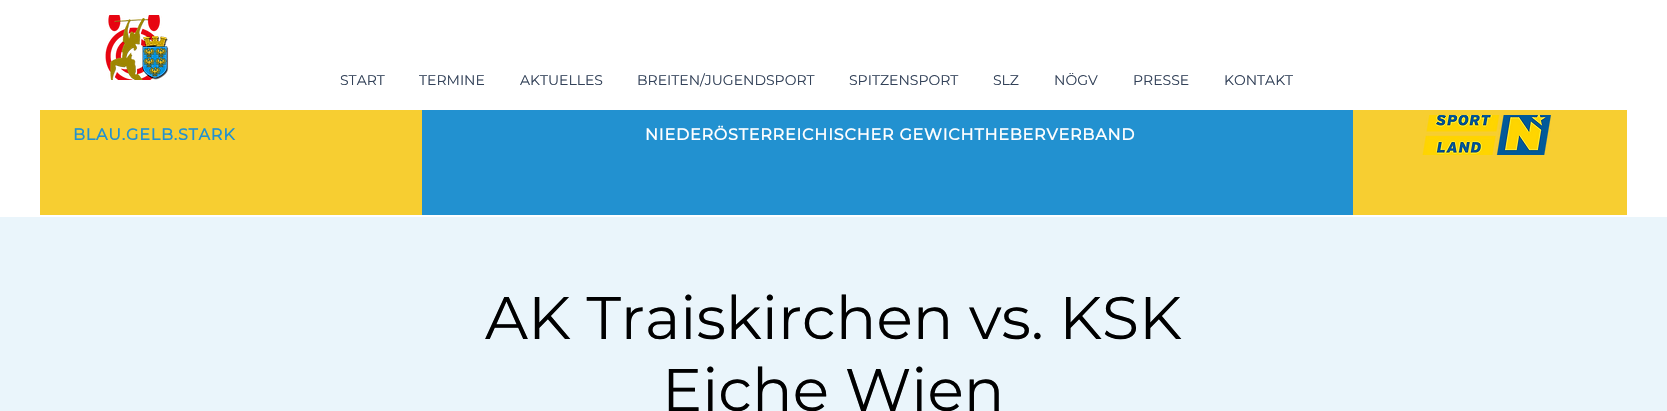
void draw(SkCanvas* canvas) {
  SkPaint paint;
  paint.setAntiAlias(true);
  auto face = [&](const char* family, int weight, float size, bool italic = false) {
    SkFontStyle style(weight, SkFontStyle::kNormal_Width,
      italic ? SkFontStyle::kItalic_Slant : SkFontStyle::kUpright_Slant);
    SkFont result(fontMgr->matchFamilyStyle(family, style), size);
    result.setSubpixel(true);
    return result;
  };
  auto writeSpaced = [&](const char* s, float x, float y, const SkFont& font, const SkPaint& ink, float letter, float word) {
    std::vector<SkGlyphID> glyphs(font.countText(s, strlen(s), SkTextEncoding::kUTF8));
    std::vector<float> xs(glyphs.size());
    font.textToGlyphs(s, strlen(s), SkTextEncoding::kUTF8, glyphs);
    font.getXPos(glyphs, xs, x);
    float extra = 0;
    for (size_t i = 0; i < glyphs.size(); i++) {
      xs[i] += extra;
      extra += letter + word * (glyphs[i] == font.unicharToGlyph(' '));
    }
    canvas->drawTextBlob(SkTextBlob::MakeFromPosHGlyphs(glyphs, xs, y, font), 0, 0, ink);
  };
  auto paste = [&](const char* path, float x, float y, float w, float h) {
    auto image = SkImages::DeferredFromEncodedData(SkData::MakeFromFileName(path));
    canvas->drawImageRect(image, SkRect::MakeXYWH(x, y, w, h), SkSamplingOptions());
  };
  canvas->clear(0xffffffff);
  paste("img/1.png", 105, 15, 64, 65);
  {
    const struct { float x, y, w, h; SkColor color; } items[] = {
      {422, 110, 931, 105, 0xff2291d0},
      {40, 110, 382, 105, 0xfff7ce31},
      {1353, 110, 274, 105, 0xfff7ce31},
    };
    for (auto [x, y, w, h, color] : items) {
      paint.setColor(color);
      canvas->drawRect(SkRect::MakeXYWH(x, y, w, h), paint);
    }
  }
  paste("img/2.png", 1422, 115, 129, 40);
  paint.setColor(0xffeaf5fb);
  canvas->drawRect(SkRect::MakeXYWH(0, 217, 1667, 194), paint);
  auto f0 = face("Montserrat", 400, 14);
  paint.setColor(0xff324158);
  {
    const struct { const char* s; float x, y; } items[] = {
      {"START", 340, 85},
      {"TERMINE", 419, 85},
      {"AKTUELLES", 520, 85},
      {"BREITEN/JUGENDSPORT", 637, 85},
      {"SPITZENSPORT", 849, 85},
      {"SLZ", 993, 85},
      {"NÖGV", 1054, 85},
      {"PRESSE", 1133, 85},
      {"KONTAKT", 1224, 85},
    };
    for (auto [s, x, y] : items) {
      canvas->drawString(s, x, y, f0, paint);
    }
  }
  auto f1 = face("Montserrat", 700, 16);
  paint.setColor(0xff2291d0);
  writeSpaced("BLAU.GELB.STARK", 73, 140, f1, paint, 0.8f, 0);
  paint.setColor(0xffffffff);
  writeSpaced("NIEDERÖSTERREICHISCHER GEWICHTHEBERVERBAND", 645, 140, f1, paint, 0.8f, 0);
  auto f2 = face("Montserrat", 400, 60);
  paint.setColor(0xff000000);
  canvas->drawString("AK Traiskirchen vs. KSK", 485, 339, f2, paint);
  canvas->drawString("Eiche Wien", 662, 411, f2, paint);
}
